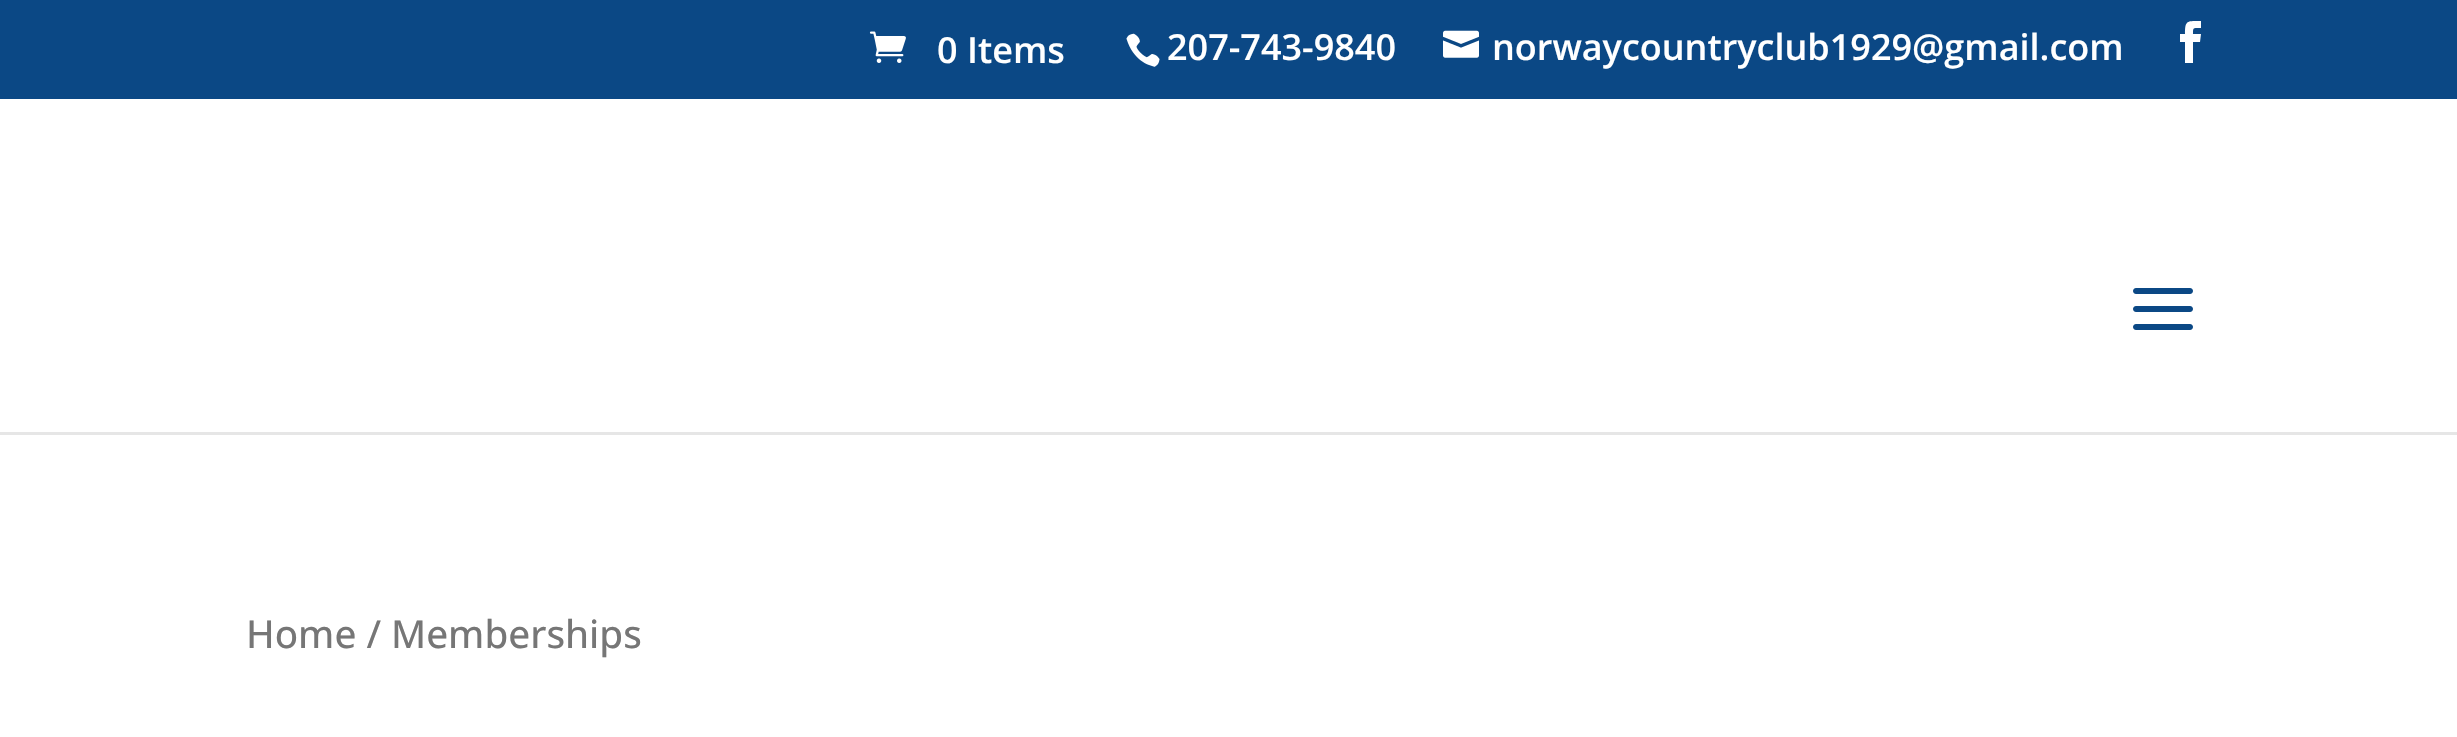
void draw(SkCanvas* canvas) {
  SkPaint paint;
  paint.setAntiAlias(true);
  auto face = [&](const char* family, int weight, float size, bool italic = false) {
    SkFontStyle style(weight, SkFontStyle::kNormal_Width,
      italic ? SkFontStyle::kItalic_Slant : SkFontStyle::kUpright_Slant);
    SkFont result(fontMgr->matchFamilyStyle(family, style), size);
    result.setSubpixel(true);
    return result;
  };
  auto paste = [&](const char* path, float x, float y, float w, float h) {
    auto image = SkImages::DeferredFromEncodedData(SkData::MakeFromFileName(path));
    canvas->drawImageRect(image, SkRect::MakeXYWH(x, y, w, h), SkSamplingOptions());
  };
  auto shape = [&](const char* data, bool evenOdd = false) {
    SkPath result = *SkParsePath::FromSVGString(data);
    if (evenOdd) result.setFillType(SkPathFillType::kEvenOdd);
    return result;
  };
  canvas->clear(0xffffffff);
  paint.setColor(0xff0b4885);
  canvas->drawRect(SkRect::MakeXYWH(0, 0, 2457, 99), paint);
  paste("img/1.png", 869, 31, 37, 32);
  paste("img/2.png", 1126, 33, 34, 34);
  paste("img/3.png", 1443, 30, 36, 28);
  paint.setColor(0xffffffff);
  canvas->drawPath(shape("M2185 63H2193V42H2200L2201 34H2193C2193 27 2193 28 2201 28V21C2187 21 2185 20 2185 34H2180V42H2185Z"), paint);
  paint.setColor(0xffe6e6e6);
  canvas->drawRect(SkRect::MakeXYWH(0, 432, 2457, 3), paint);
  paste("img/4.png", 2133, 288, 60, 42);
  auto f0 = face("Open Sans", 600, 36);
  paint.setColor(0xffffffff);
  {
    const struct { const char* s; float x, y; } items[] = {
      {"0 Items", 937, 63},
      {"207-743-9840", 1167, 60},
      {"norwaycountryclub1929@gmail.com", 1492, 60},
    };
    for (auto [s, x, y] : items) {
      canvas->drawString(s, x, y, f0, paint);
    }
  }
  auto f1 = face("Open Sans", 500, 38.6f);
  paint.setColor(0xff767676);
  canvas->drawString("Home / Memberships", 246, 648, f1, paint);
}
